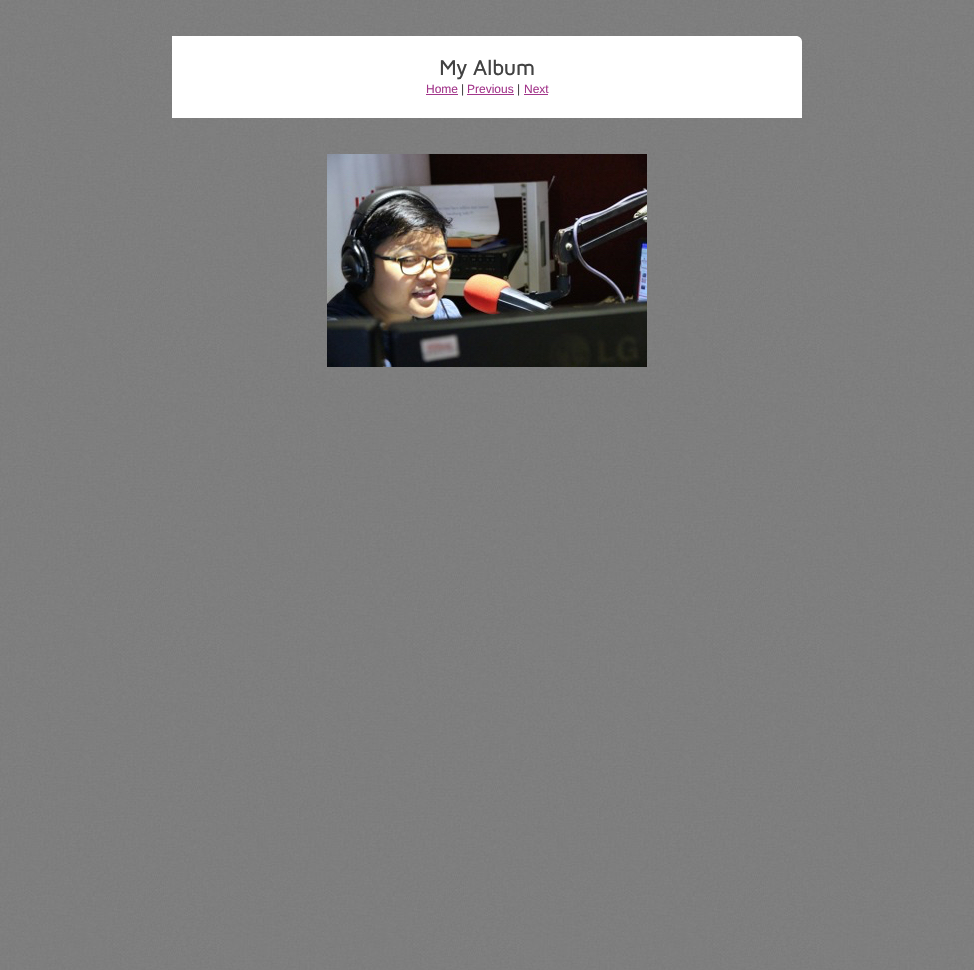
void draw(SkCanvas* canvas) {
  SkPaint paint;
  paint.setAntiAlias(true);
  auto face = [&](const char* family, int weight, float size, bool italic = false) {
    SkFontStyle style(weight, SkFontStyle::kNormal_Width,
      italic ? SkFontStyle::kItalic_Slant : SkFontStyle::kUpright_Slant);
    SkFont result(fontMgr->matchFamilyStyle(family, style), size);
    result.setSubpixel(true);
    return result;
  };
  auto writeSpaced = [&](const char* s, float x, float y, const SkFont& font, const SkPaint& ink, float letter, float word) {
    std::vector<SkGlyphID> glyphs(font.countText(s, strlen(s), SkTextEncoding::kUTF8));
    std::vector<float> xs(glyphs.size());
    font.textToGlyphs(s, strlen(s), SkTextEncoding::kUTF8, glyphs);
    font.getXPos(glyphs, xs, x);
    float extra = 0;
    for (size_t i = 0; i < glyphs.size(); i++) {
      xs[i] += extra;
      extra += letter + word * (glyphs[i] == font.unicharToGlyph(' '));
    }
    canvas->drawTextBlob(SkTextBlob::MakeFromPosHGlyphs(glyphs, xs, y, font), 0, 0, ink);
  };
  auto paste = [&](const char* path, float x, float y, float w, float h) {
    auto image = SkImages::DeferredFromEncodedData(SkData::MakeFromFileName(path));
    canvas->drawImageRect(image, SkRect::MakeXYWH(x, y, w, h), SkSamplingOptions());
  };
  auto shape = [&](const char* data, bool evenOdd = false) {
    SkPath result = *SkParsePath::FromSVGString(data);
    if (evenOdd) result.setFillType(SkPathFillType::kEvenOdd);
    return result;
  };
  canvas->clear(0xffffffff);
  paste("img/1.png", 0, 0, 974, 970);
  paint.setColor(0xffffffff);
  canvas->drawPath(shape("M172 36H796C799.5 36 802 38.5 802 42V118H172Z"), paint);
  {
    const struct { float x, y, w, h; SkColor color; } items[] = {
      {426, 94, 32, 1, 0xffa3368b},
      {467, 94, 47, 1, 0xffa3368b},
      {524, 94, 24, 1, 0xffa3368b},
    };
    for (auto [x, y, w, h, color] : items) {
      paint.setColor(color);
      canvas->drawRect(SkRect::MakeXYWH(x, y, w, h), paint);
    }
  }
  paste("img/2.png", 327, 154, 320, 213);
  auto f0 = face("Maven Pro", 500, 22);
  paint.setColor(0xff424242);
  writeSpaced("My Album", 439, 75, f0, paint, -1, 0);
  auto f1 = face("Liberation Sans", 400, 12);
  paint.setColor(0xffa3368b);
  canvas->drawString("Home", 426, 93, f1, paint);
  paint.setColor(0xff424242);
  canvas->drawString("|", 461, 93, f1, paint);
  paint.setColor(0xffa3368b);
  canvas->drawString("Previous", 467, 93, f1, paint);
  paint.setColor(0xff424242);
  canvas->drawString("|", 517, 93, f1, paint);
  paint.setColor(0xffa3368b);
  canvas->drawString("Next", 524, 93, f1, paint);
}
